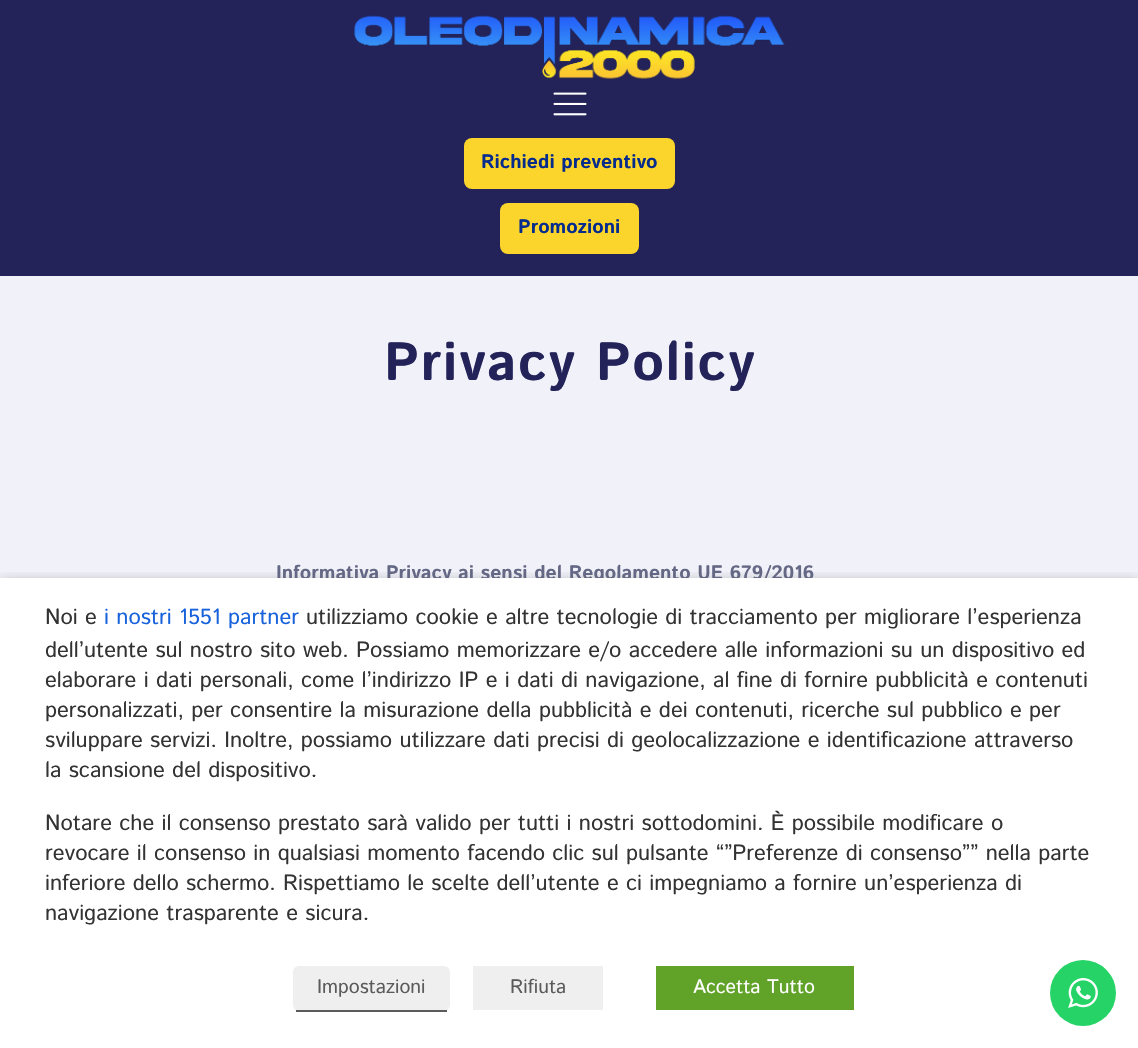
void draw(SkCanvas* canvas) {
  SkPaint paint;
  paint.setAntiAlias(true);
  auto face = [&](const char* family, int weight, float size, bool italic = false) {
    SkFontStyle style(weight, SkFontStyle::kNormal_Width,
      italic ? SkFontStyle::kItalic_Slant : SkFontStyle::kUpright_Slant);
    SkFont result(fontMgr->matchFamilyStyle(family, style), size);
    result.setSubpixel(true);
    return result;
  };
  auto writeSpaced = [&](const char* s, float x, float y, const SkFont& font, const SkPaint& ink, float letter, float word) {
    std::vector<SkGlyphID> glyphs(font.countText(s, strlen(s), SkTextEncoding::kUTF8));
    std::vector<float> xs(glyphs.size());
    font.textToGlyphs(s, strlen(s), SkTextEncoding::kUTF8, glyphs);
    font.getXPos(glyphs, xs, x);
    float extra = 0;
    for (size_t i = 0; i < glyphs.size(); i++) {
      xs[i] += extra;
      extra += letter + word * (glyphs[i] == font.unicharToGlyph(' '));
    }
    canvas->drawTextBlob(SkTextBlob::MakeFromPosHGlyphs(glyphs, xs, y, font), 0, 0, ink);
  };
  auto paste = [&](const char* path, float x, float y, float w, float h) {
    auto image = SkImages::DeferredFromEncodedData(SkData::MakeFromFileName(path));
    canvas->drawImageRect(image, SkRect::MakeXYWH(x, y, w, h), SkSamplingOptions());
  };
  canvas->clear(0xfff1f2f9);
  paint.setColor(0xff23235a);
  canvas->drawRect(SkRect::MakeXYWH(0, 0, 1138, 276), paint);
  paste("img/1.png", 354, 15, 431, 64);
  paste("img/2.png", 553, 92, 34, 24);
  paint.setColor(0xfffcd52c);
  canvas->drawRoundRect(SkRect::MakeXYWH(464, 138, 211, 51), 8, 8, paint);
  canvas->drawRoundRect(SkRect::MakeXYWH(500, 203, 139, 51), 8, 8, paint);
  canvas->save();
  canvas->clipRect(SkRect::MakeXYWH(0, 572, 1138, 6));
  paint.setColor(0x80000000);
  paint.setMaskFilter(SkMaskFilter::MakeBlur(kNormal_SkBlurStyle, 7.5f));
  canvas->drawRect(SkRect::MakeXYWH(0, 585, 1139, 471), paint);
  paint.setMaskFilter(nullptr);
  canvas->restore();
  auto f0 = face("Istok Web", 700, 19.5f);
  paint.setColor(0xff052b8d);
  canvas->drawString("Richiedi preventivo", 481, 168, f0, paint);
  canvas->drawString("Promozioni", 518, 233, f0, paint);
  auto f1 = face("Istok Web", 700, 54);
  paint.setColor(0xff23235a);
  writeSpaced("Privacy Policy", 384, 380, f1, paint, 1.5f, 0);
  paint.setColor(0xff646884);
  canvas->drawString("Informativa Privacy ai sensi del Regolamento UE 679/2016", 276, 579, f0, paint);
  paint.setColor(0xf7ffffff);
  canvas->drawRect(SkRect::MakeXYWH(0, 578, 1138, 470), paint);
  auto f2 = face("Istok Web", 400, 22);
  paint.setColor(0xff333333);
  canvas->drawString("Noi e", 45, 624, f2, paint);
  paint.setColor(0xff1863dc);
  canvas->drawString("i nostri 1551 partner", 104, 624, f2, paint);
  paint.setColor(0xff333333);
  {
    const struct { const char* s; float x, y; } items[] = {
      {"utilizziamo cookie e altre tecnologie di tracciamento per migliorare l’esperienza", 306, 624},
      {"dell’utente sul nostro sito web. Possiamo memorizzare e/o accedere alle informazioni su un dispositivo ed", 45, 657},
      {"elaborare i dati personali, come l’indirizzo IP e i dati di navigazione, al fine di fornire pubblicità e contenuti", 45, 687},
      {"personalizzati, per consentire la misurazione della pubblicità e dei contenuti, ricerche sul pubblico e per", 45, 717},
      {"sviluppare servizi. Inoltre, possiamo utilizzare dati precisi di geolocalizzazione e identificazione attraverso", 45, 747},
      {"la scansione del dispositivo.", 45, 777},
      {"Notare che il consenso prestato sarà valido per tutti i nostri sottodomini. È possibile modificare o", 45, 830},
      {"revocare il consenso in qualsiasi momento facendo clic sul pulsante “”Preferenze di consenso”” nella parte", 45, 860},
      {"inferiore dello schermo. Rispettiamo le scelte dell’utente e ci impegniamo a fornire un’esperienza di", 45, 890},
      {"navigazione trasparente e sicura.", 45, 920},
    };
    for (auto [s, x, y] : items) {
      canvas->drawString(s, x, y, f2, paint);
    }
  }
  paint.setColor(0xffefefef);
  canvas->drawRoundRect(SkRect::MakeXYWH(293, 966, 157, 45), 6, 6, paint);
  paint.setColor(0xff5b5b5b);
  canvas->drawRect(SkRect::MakeXYWH(296, 1010, 151, 2), paint);
  auto f3 = face("Istok Web", 400, 19.5f);
  canvas->drawString("Impostazioni", 317, 993, f3, paint);
  paint.setColor(0xffefefef);
  canvas->drawRect(SkRect::MakeXYWH(473, 966, 130, 44), paint);
  paint.setColor(0xff5b5b5b);
  canvas->drawString("Rifiuta", 510, 993, f3, paint);
  paint.setColor(0xff61a229);
  canvas->drawRect(SkRect::MakeXYWH(656, 966, 198, 44), paint);
  paint.setColor(0xffffffff);
  canvas->drawString("Accetta Tutto", 693, 993, f3, paint);
  paint.setColor(0xff25d366);
  canvas->drawCircle(1083, 993, 33, paint);
  paste("img/3.png", 1068, 978, 30, 30);
}
